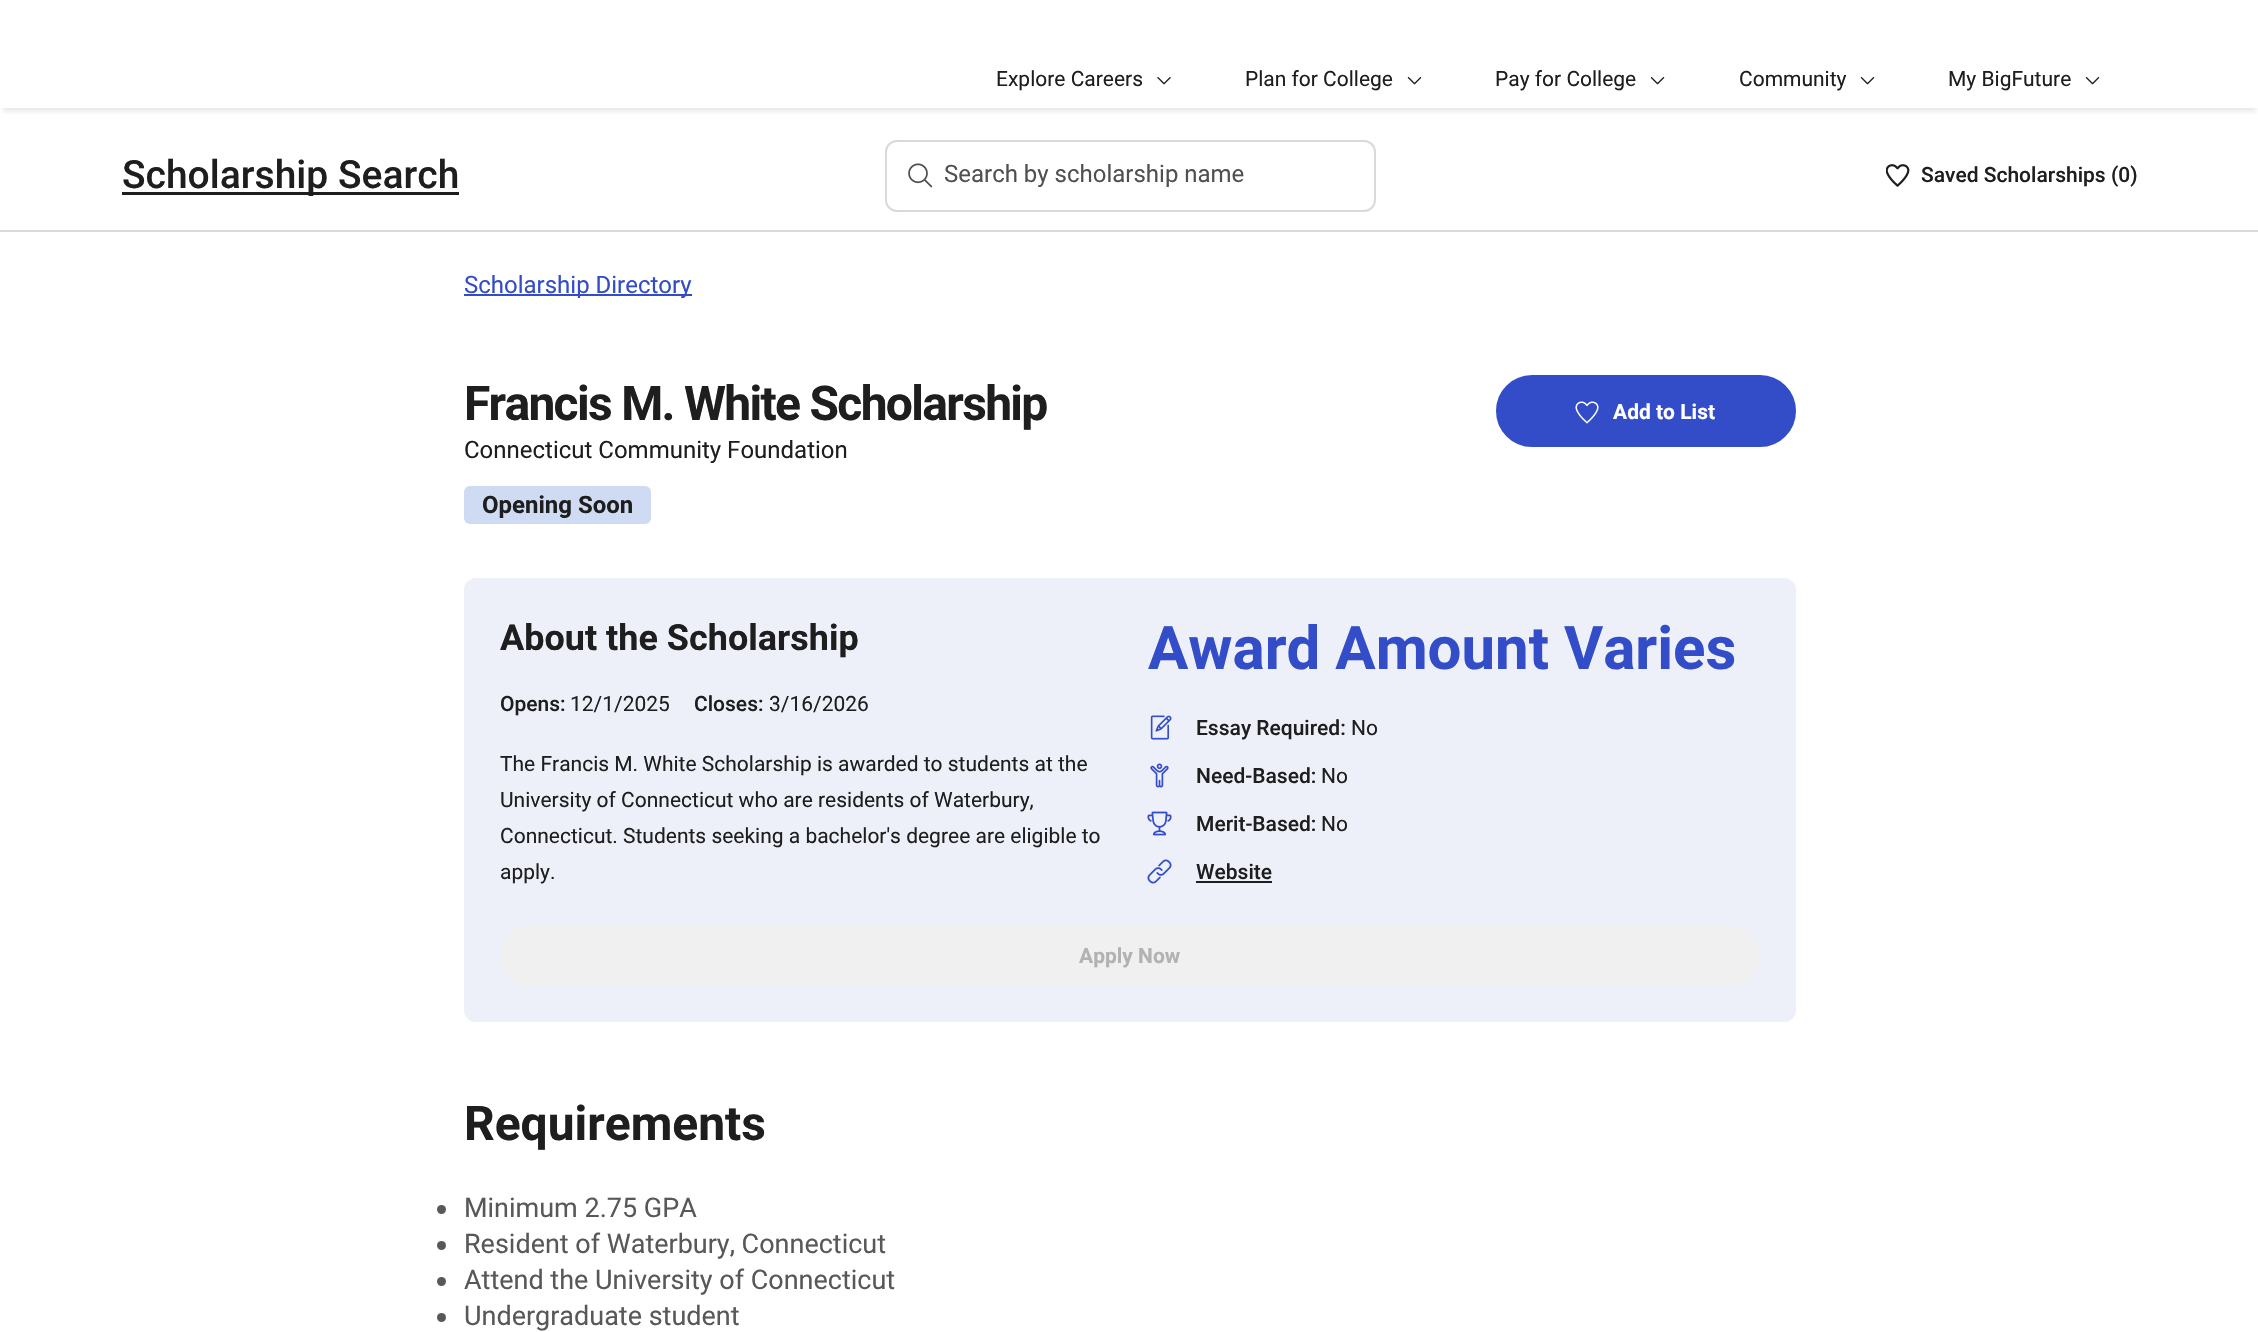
void draw(SkCanvas* canvas) {
  SkPaint paint;
  paint.setAntiAlias(true);
  auto face = [&](const char* family, int weight, float size, bool italic = false) {
    SkFontStyle style(weight, SkFontStyle::kNormal_Width,
      italic ? SkFontStyle::kItalic_Slant : SkFontStyle::kUpright_Slant);
    SkFont result(fontMgr->matchFamilyStyle(family, style), size);
    result.setSubpixel(true);
    return result;
  };
  auto writeSpaced = [&](const char* s, float x, float y, const SkFont& font, const SkPaint& ink, float letter, float word) {
    std::vector<SkGlyphID> glyphs(font.countText(s, strlen(s), SkTextEncoding::kUTF8));
    std::vector<float> xs(glyphs.size());
    font.textToGlyphs(s, strlen(s), SkTextEncoding::kUTF8, glyphs);
    font.getXPos(glyphs, xs, x);
    float extra = 0;
    for (size_t i = 0; i < glyphs.size(); i++) {
      xs[i] += extra;
      extra += letter + word * (glyphs[i] == font.unicharToGlyph(' '));
    }
    canvas->drawTextBlob(SkTextBlob::MakeFromPosHGlyphs(glyphs, xs, y, font), 0, 0, ink);
  };
  auto paste = [&](const char* path, float x, float y, float w, float h) {
    auto image = SkImages::DeferredFromEncodedData(SkData::MakeFromFileName(path));
    canvas->drawImageRect(image, SkRect::MakeXYWH(x, y, w, h), SkSamplingOptions());
  };
  canvas->clear(0xffffffff);
  canvas->save();
  canvas->clipRect(SkRect::MakeXYWH(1, 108, 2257, 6));
  paint.setColor(0x1a000000);
  paint.setMaskFilter(SkMaskFilter::MakeBlur(kNormal_SkBlurStyle, 3));
  canvas->drawRect(SkRect::MakeXYWH(3, 9, 2253, 102), paint);
  paint.setMaskFilter(nullptr);
  canvas->restore();
  paste("img/1.png", 1157, 77, 14, 8);
  paste("img/2.png", 1407, 77, 15, 8);
  paste("img/2.png", 1650, 77, 15, 8);
  paste("img/2.png", 1860, 77, 15, 8);
  paste("img/2.png", 2085, 77, 15, 8);
  paint.setColor(0xffd9d9d9);
  canvas->drawRect(SkRect::MakeXYWH(0, 230, 2258, 2), paint);
  paint.setColor(0xff1e1e1e);
  canvas->drawRect(SkRect::MakeXYWH(122, 192, 337, 3), paint);
  paint.setStroke(true);
  paint.setStrokeWidth(2);
  paint.setColor(0xffd9d9d9);
  canvas->drawRoundRect(SkRect::MakeXYWH(886, 141, 489, 70), 11, 11, paint);
  paste("img/3.png", 908, 163, 25, 25);
  paste("img/4.png", 1886, 164, 24, 23);
  paint.setStroke(false);
  paint.setColor(0xff324dc7);
  canvas->drawRect(SkRect::MakeXYWH(464, 294, 228, 2), paint);
  paint.setColor(0xffcedbf3);
  canvas->drawRoundRect(SkRect::MakeXYWH(464, 486, 187, 38), 6, 6, paint);
  paint.setColor(0xff324dc7);
  canvas->drawRoundRect(SkRect::MakeXYWH(1497, 376, 298, 70), 35, 35, paint);
  paint.setStroke(true);
  canvas->drawRoundRect(SkRect::MakeXYWH(1497, 376, 298, 70), 35, 35, paint);
  paste("img/5.png", 1575, 401, 24, 23);
  paint.setStroke(false);
  paint.setColor(0xffedf0f9);
  canvas->drawRoundRect(SkRect::MakeXYWH(464, 578, 1332, 444), 12, 12, paint);
  paste("img/6.png", 1150, 715, 22, 25);
  paste("img/7.png", 1150, 763, 19, 25);
  paste("img/8.png", 1147, 811, 25, 25);
  paste("img/9.png", 1147, 859, 25, 25);
  paint.setColor(0xff1e1e1e);
  canvas->drawRect(SkRect::MakeXYWH(1196, 881, 76, 2), paint);
  paint.setColor(0xfff0f0f0);
  canvas->drawRoundRect(SkRect::MakeXYWH(500, 926, 1260, 60), 30, 30, paint);
  paint.setColor(0xff585858);
  canvas->drawCircle(441.5f, 1209.5f, 4.5f, paint);
  canvas->drawCircle(441.5f, 1245.5f, 4.5f, paint);
  canvas->drawCircle(441.5f, 1281.5f, 4.5f, paint);
  canvas->drawCircle(441.5f, 1317.5f, 4.5f, paint);
  auto f0 = face("Roboto", 400, 21);
  paint.setColor(0xff1e1e1e);
  {
    const struct { const char* s; float x, y; } items[] = {
      {"Explore Careers", 996, 86},
      {"Plan for College", 1245, 86},
      {"Pay for College", 1495, 86},
      {"Community", 1739, 86},
      {"My BigFuture", 1948, 86},
    };
    for (auto [s, x, y] : items) {
      canvas->drawString(s, x, y, f0, paint);
    }
  }
  auto f1 = face("Roboto", 500, 39);
  canvas->drawString("Scholarship Search", 122, 188, f1, paint);
  auto f2 = face("Roboto", 400, 24);
  paint.setColor(0xff505050);
  canvas->drawString("Search by scholarship name", 944, 182, f2, paint);
  auto f3 = face("Roboto", 500, 21);
  paint.setColor(0xff1e1e1e);
  canvas->drawString("Saved Scholarships (0)", 1921, 182, f3, paint);
  paint.setColor(0xff324dc7);
  canvas->drawString("Scholarship Directory", 464, 293, f2, paint);
  auto f4 = face("Roboto", 700, 48);
  paint.setColor(0xff1e1e1e);
  writeSpaced("Francis M. White Scholarship", 464, 420, f4, paint, -1.7f, 0);
  canvas->drawString("Connecticut Community Foundation", 464, 458, f2, paint);
  auto f5 = face("Roboto", 700, 24);
  canvas->drawString("Opening Soon", 482, 513, f5, paint);
  auto f6 = face("Roboto", 700, 21);
  paint.setColor(0xffffffff);
  canvas->drawString("Add to List", 1613, 419, f6, paint);
  auto f7 = face("Roboto", 700, 36);
  paint.setColor(0xff1e1e1e);
  canvas->drawString("About the Scholarship", 500, 650, f7, paint);
  canvas->drawString("Opens:", 500, 711, f3, paint);
  canvas->drawString("12/1/2025", 570, 711, f0, paint);
  canvas->drawString("Closes:", 694, 711, f3, paint);
  {
    const struct { const char* s; float x, y; } items[] = {
      {"3/16/2026", 769, 711},
      {"The Francis M. White Scholarship is awarded to students at the", 500, 771},
      {"University of Connecticut who are residents of Waterbury,", 500, 807},
      {"Connecticut. Students seeking a bachelor's degree are eligible to", 500, 843},
      {"apply.", 500, 879},
    };
    for (auto [s, x, y] : items) {
      canvas->drawString(s, x, y, f0, paint);
    }
  }
  auto f8 = face("Roboto", 700, 60);
  paint.setColor(0xff324dc7);
  canvas->drawString("Award Amount Varies", 1148, 669, f8, paint);
  paint.setColor(0xff1e1e1e);
  canvas->drawString("Essay Required:", 1196, 735, f3, paint);
  canvas->drawString("No", 1351, 735, f0, paint);
  canvas->drawString("Need-Based:", 1196, 783, f3, paint);
  canvas->drawString("No", 1321, 783, f0, paint);
  canvas->drawString("Merit-Based:", 1196, 831, f3, paint);
  canvas->drawString("No", 1321, 831, f0, paint);
  canvas->drawString("Website", 1196, 879, f3, paint);
  paint.setColor(0xffb2b2b2);
  canvas->drawString("Apply Now", 1079, 963, f6, paint);
  paint.setColor(0xff1e1e1e);
  canvas->drawString("Requirements", 464, 1140, f4, paint);
  auto f9 = face("Roboto", 400, 27);
  paint.setColor(0xff585858);
  {
    const struct { const char* s; float x, y; } items[] = {
      {"Minimum 2.75 GPA", 464, 1217},
      {"Resident of Waterbury, Connecticut", 464, 1253},
      {"Attend the University of Connecticut", 464, 1289},
      {"Undergraduate student", 464, 1325},
    };
    for (auto [s, x, y] : items) {
      canvas->drawString(s, x, y, f9, paint);
    }
  }
}
